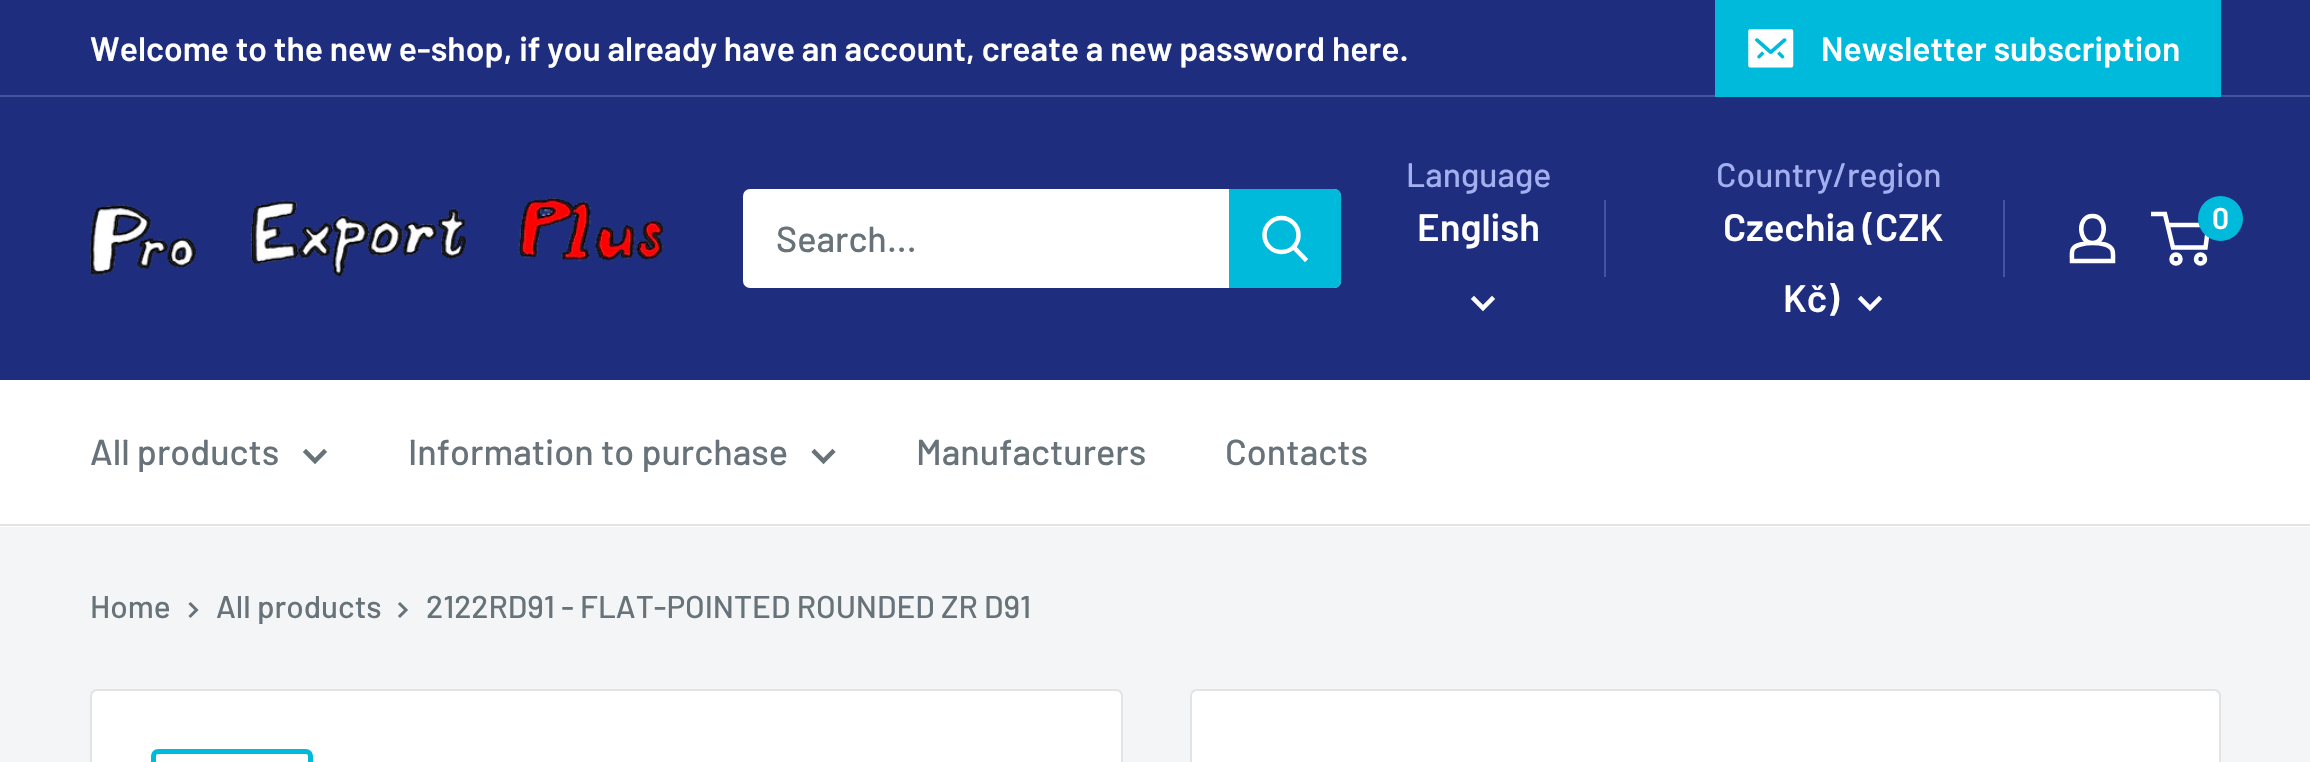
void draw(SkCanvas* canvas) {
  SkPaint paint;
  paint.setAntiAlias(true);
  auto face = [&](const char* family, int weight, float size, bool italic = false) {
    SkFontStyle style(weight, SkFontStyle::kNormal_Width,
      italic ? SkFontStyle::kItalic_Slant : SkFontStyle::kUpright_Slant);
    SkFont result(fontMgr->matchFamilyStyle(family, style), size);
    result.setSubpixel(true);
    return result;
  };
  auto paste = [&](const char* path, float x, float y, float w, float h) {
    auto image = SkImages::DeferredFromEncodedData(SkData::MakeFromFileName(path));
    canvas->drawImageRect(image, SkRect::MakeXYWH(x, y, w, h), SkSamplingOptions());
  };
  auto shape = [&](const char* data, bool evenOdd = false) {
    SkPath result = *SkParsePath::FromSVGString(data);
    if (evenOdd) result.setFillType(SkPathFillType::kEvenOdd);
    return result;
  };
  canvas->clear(0xfff3f5f6);
  paint.setColor(0xff1e2d7d);
  canvas->drawRect(SkRect::MakeXYWH(0, 0, 2310, 95), paint);
  paint.setColor(0xff46549f);
  canvas->drawRect(SkRect::MakeXYWH(0, 95, 2310, 2), paint);
  paint.setColor(0xff00badb);
  canvas->drawPath(shape("M1715 94V97H2221V2V94Z"), paint);
  canvas->drawRect(SkRect::MakeXYWH(1715, 0, 506, 94), paint);
  paste("img/1.png", 1748, 29, 46, 39);
  paint.setColor(0xff1e2d7d);
  canvas->drawRect(SkRect::MakeXYWH(0, 97, 2310, 283), paint);
  paste("img/2.png", 90, 198, 574, 79);
  paint.setColor(0xffffffff);
  canvas->drawRoundRect(SkRect::MakeXYWH(743, 189, 598, 99), 7, 7, paint);
  paint.setColor(0xff00badb);
  canvas->drawPath(shape("M1229 189H1334C1338 189 1341 192 1341 196V281C1341 285 1338 288 1334 288H1229Z"), paint);
  paint.setStroke(true);
  paint.setStrokeWidth(4.5f);
  paint.setStrokeCap(SkPaint::kSquare_Cap);
  paint.setColor(0xffffffff);
  canvas->drawPath(shape("M1305 259L1294 247.5"), paint);
  paint.setStrokeCap(SkPaint::kButt_Cap);
  canvas->drawCircle(1281.5f, 235, 17, paint);
  paint.setStrokeCap(SkPaint::kSquare_Cap);
  canvas->drawPath(shape("M1492 299L1483 308L1474 299"), paint);
  paint.setStroke(false);
  paint.setColor(0xff46549f);
  canvas->drawRect(SkRect::MakeXYWH(1604, 200, 2, 77), paint);
  paint.setStroke(true);
  paint.setColor(0xffffffff);
  canvas->drawPath(shape("M1879 299L1870 308L1861 299"), paint);
  paint.setStroke(false);
  paint.setColor(0xff46549f);
  canvas->drawRect(SkRect::MakeXYWH(2003, 200, 2, 77), paint);
  paint.setStroke(true);
  paint.setStrokeCap(SkPaint::kButt_Cap);
  paint.setColor(0xffffffff);
  canvas->drawPath(shape("M2092.5 243C2096.5 243 2101 243.5 2105 244.5C2114.5 247.5 2113 252.5 2113 261H2072C2072 252 2070 247 2080.5 244.5C2084.5 243.5 2088.5 243 2092.5 243ZM2092.5 243C2078.5 243 2076.5 216 2092.5 216C2108.5 216 2106.5 243 2092.5 243Z"), paint);
  canvas->drawCircle(2176, 259, 4.5f, paint);
  canvas->drawCircle(2200.5f, 259, 4.5f, paint);
  canvas->drawPath(shape("M2167.5 225H2208.5L2205.5 247.5H2173L2165 214H2151"), paint);
  paint.setStroke(false);
  paint.setColor(0xff00badb);
  canvas->drawCircle(2220.5f, 218.5f, 22.5f, paint);
  paint.setColor(0xffffffff);
  canvas->drawRect(SkRect::MakeXYWH(0, 380, 2310, 147), paint);
  paint.setColor(0xffe1e3e4);
  canvas->drawRect(SkRect::MakeXYWH(0, 524, 2310, 2), paint);
  paint.setStroke(true);
  paint.setStrokeCap(SkPaint::kSquare_Cap);
  paint.setColor(0xff677279);
  canvas->drawPath(shape("M324 452L315 461L306 452"), paint);
  canvas->drawPath(shape("M832.5 452L823.5 461L814.5 452"), paint);
  paint.setStrokeWidth(3);
  canvas->drawPath(shape("M190.5 604L196.5 610L190.5 616"), paint);
  canvas->drawPath(shape("M400 604L406 610L400 616"), paint);
  paint.setStroke(false);
  paint.setColor(0xffffffff);
  canvas->drawRoundRect(SkRect::MakeXYWH(91, 690, 1031, 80), 6, 6, paint);
  paint.setStroke(true);
  paint.setStrokeWidth(2);
  paint.setStrokeCap(SkPaint::kButt_Cap);
  paint.setColor(0xffe1e3e4);
  canvas->drawRoundRect(SkRect::MakeXYWH(91, 690, 1031, 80), 6, 6, paint);
  paint.setStrokeWidth(5);
  paint.setColor(0xff00badb);
  canvas->drawRoundRect(SkRect::MakeXYWH(153.5f, 751.5f, 157, 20), 4.5f, 4.5f, paint);
  paint.setStroke(false);
  paint.setColor(0xffffffff);
  canvas->drawRoundRect(SkRect::MakeXYWH(1191, 690, 1029, 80), 6, 6, paint);
  paint.setStroke(true);
  paint.setStrokeWidth(2);
  paint.setColor(0xffe1e3e4);
  canvas->drawRoundRect(SkRect::MakeXYWH(1191, 690, 1029, 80), 6, 6, paint);
  auto f0 = face("Barlow", 600, 33.75f);
  paint.setStroke(false);
  paint.setColor(0xffffffff);
  canvas->drawString("Welcome to the new e-shop, if you already have an account, create a new password here.", 90, 61, f0, paint);
  canvas->drawString("Newsletter subscription", 1821, 61, f0, paint);
  auto f1 = face("Barlow", 500, 36);
  paint.setColor(0xff677279);
  canvas->drawString("Search...", 776, 252, f1, paint);
  auto f2 = face("Barlow", 500, 33.75f);
  paint.setColor(0xffa3afef);
  canvas->drawString("Language", 1406, 187, f2, paint);
  auto f3 = face("Barlow", 600, 38.25f);
  paint.setColor(0xffffffff);
  canvas->drawString("English", 1417, 241, f3, paint);
  paint.setColor(0xffa3afef);
  canvas->drawString("Country/region", 1716, 187, f2, paint);
  paint.setColor(0xffffffff);
  canvas->drawString("Czechia (CZK", 1723, 241, f3, paint);
  canvas->drawString("Kč)", 1783, 312, f3, paint);
  auto f4 = face("Barlow", 600, 30);
  canvas->drawString("0", 2212, 229, f4, paint);
  paint.setColor(0xff677279);
  {
    const struct { const char* s; float x, y; } items[] = {
      {"All products", 90, 465},
      {"Information to purchase", 408, 465},
      {"Manufacturers", 916, 465},
      {"Contacts", 1225, 465},
    };
    for (auto [s, x, y] : items) {
      canvas->drawString(s, x, y, f1, paint);
    }
  }
  auto f5 = face("Barlow", 500, 31.5f);
  {
    const struct { const char* s; float x, y; } items[] = {
      {"Home", 90, 618},
      {"All products", 216, 618},
      {"2122RD91 - FLAT-POINTED ROUNDED ZR D91", 426, 618},
    };
    for (auto [s, x, y] : items) {
      canvas->drawString(s, x, y, f5, paint);
    }
  }
}
